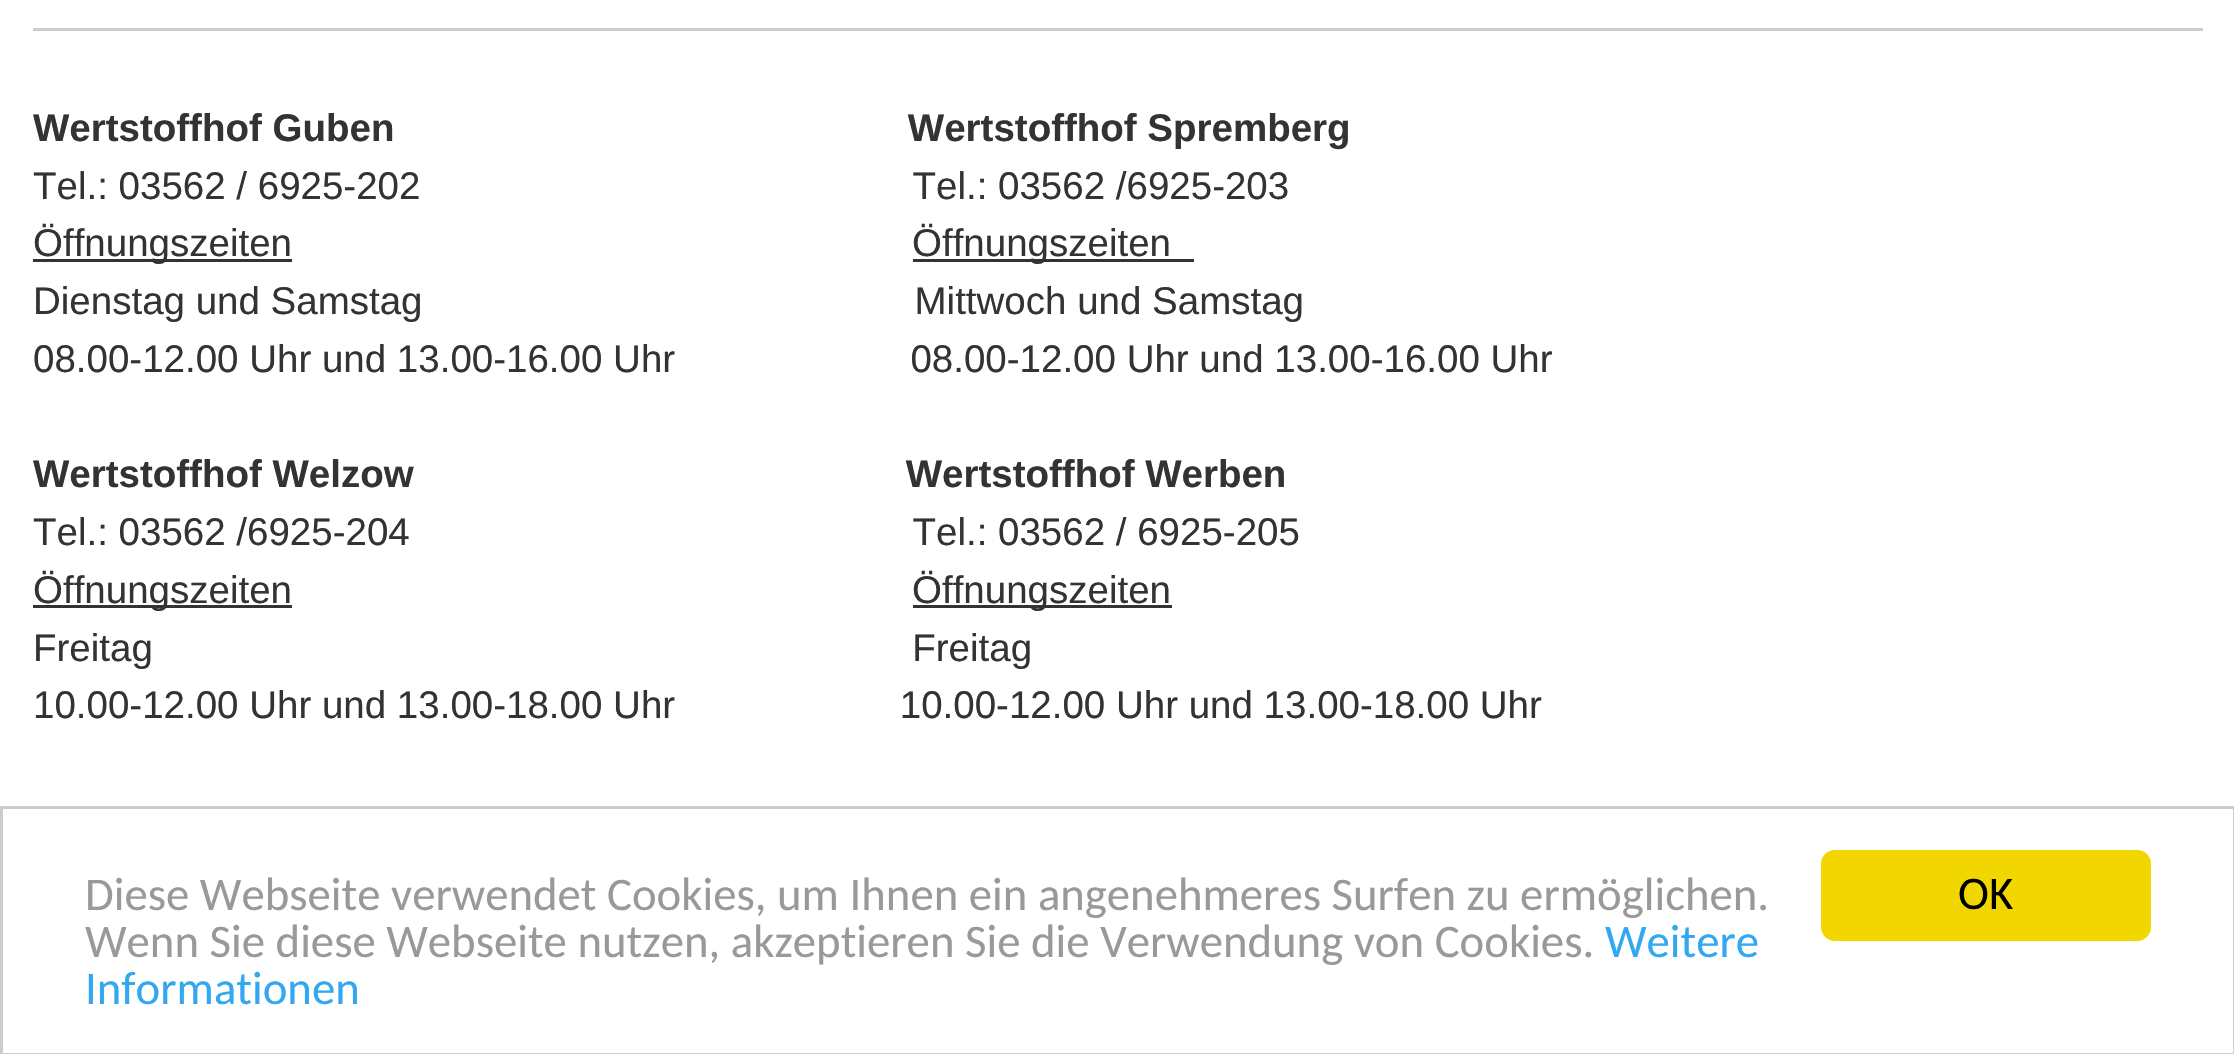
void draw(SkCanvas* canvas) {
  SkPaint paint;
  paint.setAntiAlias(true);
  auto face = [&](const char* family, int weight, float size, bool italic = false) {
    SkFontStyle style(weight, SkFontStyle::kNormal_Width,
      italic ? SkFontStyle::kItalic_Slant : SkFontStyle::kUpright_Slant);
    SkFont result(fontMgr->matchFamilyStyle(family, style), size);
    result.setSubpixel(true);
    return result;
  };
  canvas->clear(0xffffffff);
  {
    const struct { float x, y, w, h; SkColor color; } items[] = {
      {33, 28, 2170, 3, 0xffcccccc},
      {33, 259, 259, 3, 0xff333333},
      {913, 259, 281, 3, 0xff333333},
      {33, 605, 259, 3, 0xff333333},
      {913, 605, 259, 3, 0xff333333},
    };
    for (auto [x, y, w, h, color] : items) {
      paint.setColor(color);
      canvas->drawRect(SkRect::MakeXYWH(x, y, w, h), paint);
    }
  }
  paint.setStroke(true);
  paint.setStrokeWidth(3);
  paint.setColor(0xffcccccc);
  canvas->drawRect(SkRect::MakeXYWH(1.5f, 807.5f, 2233, 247), paint);
  paint.setStroke(false);
  paint.setColor(0xfff1d600);
  canvas->drawRoundRect(SkRect::MakeXYWH(1821, 850, 330, 91), 14, 14, paint);
  auto f0 = face("Liberation Sans", 700, 38.5f);
  paint.setColor(0xff333333);
  canvas->drawString("Wertstoffhof Guben                                                Wertstoffhof Spremberg", 33, 141, f0, paint);
  auto f1 = face("Liberation Sans", 400, 38.5f);
  {
    const struct { const char* s; float x, y; } items[] = {
      {"Tel.: 03562 / 6925-202                                              Tel.: 03562 /6925-203", 33, 199},
      {"Öffnungszeiten", 33, 256},
      {"Öffnungszeiten", 912, 256},
      {"Dienstag und Samstag                                              Mittwoch und Samstag", 33, 314},
      {"08.00-12.00 Uhr und 13.00-16.00 Uhr                      08.00-12.00 Uhr und 13.00-16.00 Uhr", 33, 372},
    };
    for (auto [s, x, y] : items) {
      canvas->drawString(s, x, y, f1, paint);
    }
  }
  canvas->drawString("Wertstoffhof Welzow                                              Wertstoffhof Werben", 33, 487, f0, paint);
  {
    const struct { const char* s; float x, y; } items[] = {
      {"Tel.: 03562 /6925-204                                               Tel.: 03562 / 6925-205", 33, 545},
      {"Öffnungszeiten", 33, 603},
      {"Öffnungszeiten", 912, 603},
      {"Freitag                                                                       Freitag", 33, 661},
      {"10.00-12.00 Uhr und 13.00-18.00 Uhr                     10.00-12.00 Uhr und 13.00-18.00 Uhr", 33, 718},
    };
    for (auto [s, x, y] : items) {
      canvas->drawString(s, x, y, f1, paint);
    }
  }
  auto f2 = face("Carlito", 400, 46.75f);
  paint.setColor(0xff999999);
  canvas->drawString("Diese Webseite verwendet Cookies, um Ihnen ein angenehmeres Surfen zu ermöglichen.", 85, 910, f2, paint);
  canvas->drawString("Wenn Sie diese Webseite nutzen, akzeptieren Sie die Verwendung von Cookies.", 85, 957, f2, paint);
  paint.setColor(0xff31a8f0);
  canvas->drawString("Weitere", 1605, 957, f2, paint);
  canvas->drawString("Informationen", 85, 1004, f2, paint);
  paint.setColor(0xff000000);
  canvas->drawString("OK", 1958, 909, f2, paint);
}
